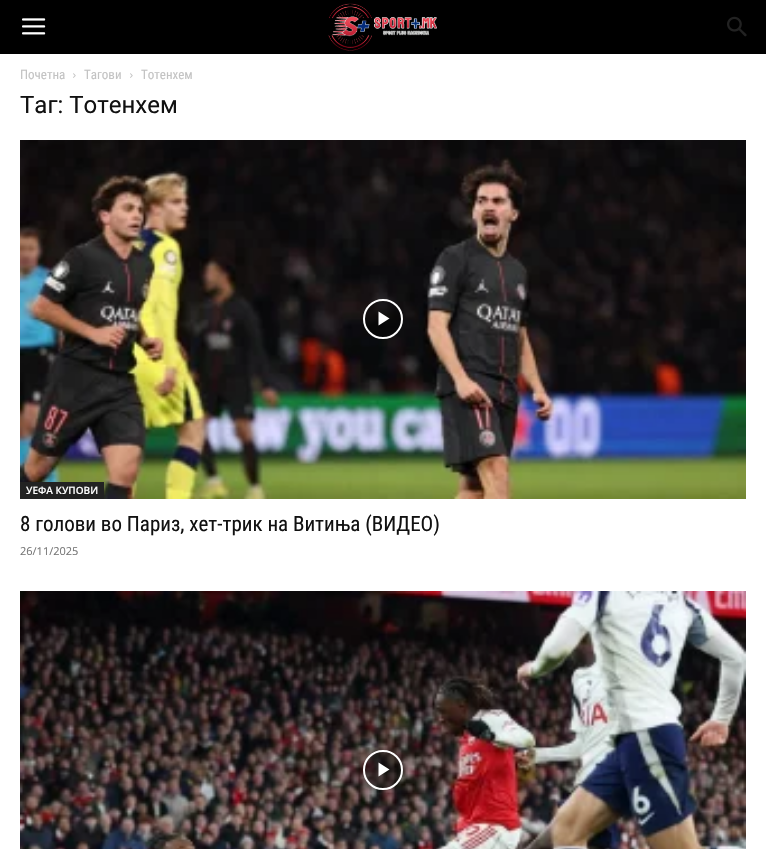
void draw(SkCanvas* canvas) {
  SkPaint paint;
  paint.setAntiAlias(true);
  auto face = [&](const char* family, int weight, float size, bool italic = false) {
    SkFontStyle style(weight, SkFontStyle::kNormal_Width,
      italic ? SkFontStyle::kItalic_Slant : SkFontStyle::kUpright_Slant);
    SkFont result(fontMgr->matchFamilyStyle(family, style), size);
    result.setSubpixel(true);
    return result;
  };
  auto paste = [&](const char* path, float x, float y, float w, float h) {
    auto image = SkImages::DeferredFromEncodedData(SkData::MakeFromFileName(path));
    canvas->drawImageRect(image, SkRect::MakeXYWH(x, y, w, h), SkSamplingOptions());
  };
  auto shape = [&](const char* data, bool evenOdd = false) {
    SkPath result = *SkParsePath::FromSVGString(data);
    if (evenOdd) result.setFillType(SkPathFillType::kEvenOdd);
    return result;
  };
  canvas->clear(0xffffffff);
  paint.setColor(0xff000000);
  canvas->drawRect(SkRect::MakeXYWH(0, 0, 766, 54), paint);
  paste("img/1.png", 22, 18, 24, 17);
  paste("img/2.png", 328, 3, 109, 48);
  paste("img/3.png", 727, 16, 20, 21);
  paste("img/4.png", 73, 73, 3, 5);
  paste("img/4.png", 130, 73, 3, 5);
  paste("img/5.png", 20, 140, 726, 359);
  paint.setColor(0x7a000000);
  canvas->drawCircle(383, 319, 19, paint);
  paint.setStroke(true);
  paint.setStrokeWidth(2);
  paint.setColor(0xffffffff);
  canvas->drawCircle(383, 319, 19, paint);
  paint.setStroke(false);
  canvas->drawPath(shape("M378.5 311.5V325.5L389.5 318.5Z"), paint);
  paint.setColor(0xff222222);
  canvas->drawRect(SkRect::MakeXYWH(20, 482, 84, 17), paint);
  paste("img/6.png", 20, 591, 726, 258);
  canvas->save();
  canvas->clipPath(shape("M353 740H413V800H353ZM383 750C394 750 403 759 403 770C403 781 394 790 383 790C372 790 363 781 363 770C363 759 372 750 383 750Z", true), true);
  paint.setColor(0x66000000);
  paint.setMaskFilter(SkMaskFilter::MakeBlur(kNormal_SkBlurStyle, 3));
  canvas->drawRoundRect(SkRect::MakeXYWH(363, 750, 40, 40), 20, 20, paint);
  paint.setMaskFilter(nullptr);
  canvas->restore();
  paint.setColor(0x7a000000);
  canvas->drawCircle(383, 770, 19, paint);
  paint.setStroke(true);
  paint.setColor(0xffffffff);
  canvas->drawCircle(383, 770, 19, paint);
  paint.setStroke(false);
  canvas->drawPath(shape("M378.5 762.5V776.5L389.5 769.5Z"), paint);
  auto f0 = face("Roboto Condensed", 400, 13);
  paint.setColor(0xffc3c3c3);
  {
    const struct { const char* s; float x, y; } items[] = {
      {"Почетна", 20, 79},
      {"Тагови", 84, 79},
      {"Тотенхем", 141, 79},
    };
    for (auto [s, x, y] : items) {
      canvas->drawString(s, x, y, f0, paint);
    }
  }
  auto f1 = face("Roboto", 400, 24);
  paint.setColor(0xff111111);
  canvas->drawString("Таг: Тотенхем", 20, 113, f1, paint);
  auto f2 = face("Open Sans", 600, 10);
  paint.setColor(0xffffffff);
  canvas->drawString("УЕФА КУПОВИ", 26, 494, f2, paint);
  auto f3 = face("Roboto Condensed", 400, 21);
  paint.setColor(0xff111111);
  canvas->drawString("8 голови во Париз, хет-трик на Витиња (ВИДЕО)", 20, 531, f3, paint);
  auto f4 = face("Open Sans", 400, 11);
  paint.setColor(0xff767676);
  canvas->drawString("26/11/2025", 20, 555, f4, paint);
}
